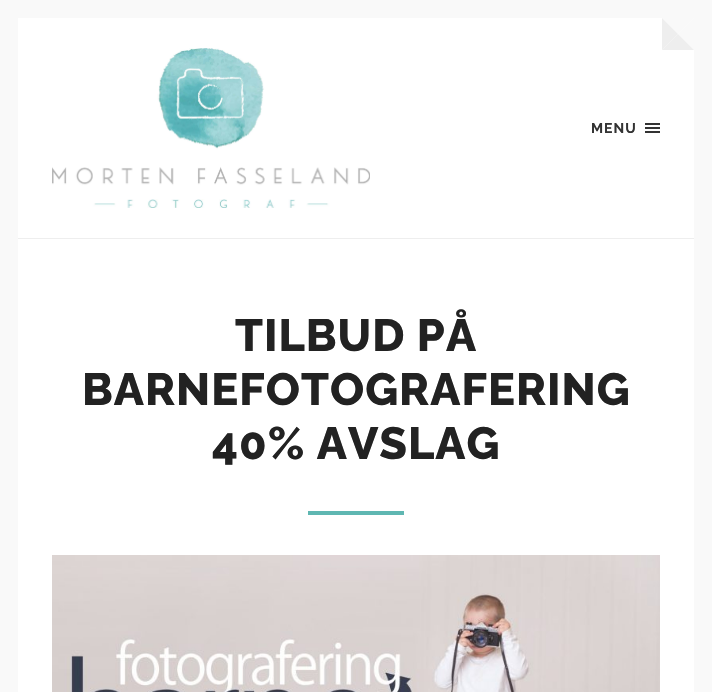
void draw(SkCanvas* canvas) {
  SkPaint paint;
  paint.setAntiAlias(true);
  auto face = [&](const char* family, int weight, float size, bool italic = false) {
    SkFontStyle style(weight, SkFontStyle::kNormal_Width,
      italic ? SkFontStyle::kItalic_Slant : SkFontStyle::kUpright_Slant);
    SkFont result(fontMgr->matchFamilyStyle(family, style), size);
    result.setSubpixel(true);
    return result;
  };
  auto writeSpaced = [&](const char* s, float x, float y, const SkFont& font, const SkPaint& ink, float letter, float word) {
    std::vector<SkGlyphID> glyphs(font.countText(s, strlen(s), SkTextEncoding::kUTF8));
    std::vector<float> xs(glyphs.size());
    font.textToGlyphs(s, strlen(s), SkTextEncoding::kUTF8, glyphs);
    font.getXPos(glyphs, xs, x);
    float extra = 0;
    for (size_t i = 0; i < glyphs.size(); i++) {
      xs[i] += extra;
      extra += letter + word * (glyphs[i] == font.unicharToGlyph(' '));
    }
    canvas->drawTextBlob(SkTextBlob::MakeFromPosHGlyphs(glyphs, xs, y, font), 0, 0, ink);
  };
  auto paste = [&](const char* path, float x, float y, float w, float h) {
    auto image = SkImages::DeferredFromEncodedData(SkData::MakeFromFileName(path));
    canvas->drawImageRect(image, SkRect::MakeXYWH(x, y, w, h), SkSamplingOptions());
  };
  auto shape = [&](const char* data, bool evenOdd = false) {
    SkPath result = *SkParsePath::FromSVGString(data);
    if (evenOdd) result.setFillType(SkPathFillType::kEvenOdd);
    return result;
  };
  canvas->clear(0xfff9f9f9);
  paint.setColor(0xffffffff);
  canvas->drawRect(SkRect::MakeXYWH(18, 18, 676, 674), paint);
  paint.setColor(0xfff9f9f9);
  canvas->drawPath(shape("M662 18H694L678 34Z"), paint);
  canvas->drawPath(shape("M694 18V50L678 34Z"), paint);
  paint.setColor(0xffeeeeee);
  canvas->drawPath(shape("M694 50H662L678 34Z"), paint);
  canvas->drawPath(shape("M662 50V18L678 34Z"), paint);
  canvas->drawRect(SkRect::MakeXYWH(18, 238, 676, 1), paint);
  paste("img/1.png", 52, 48, 318, 160);
  {
    const struct { float x, y, w, h; SkColor color; } items[] = {
      {645, 123, 15, 2, 0xff333333},
      {645, 127, 15, 2, 0xff333333},
      {645, 131, 15, 2, 0xff333333},
      {308, 511, 96, 4, 0xff5fb7b2},
    };
    for (auto [x, y, w, h, color] : items) {
      paint.setColor(color);
      canvas->drawRect(SkRect::MakeXYWH(x, y, w, h), paint);
    }
  }
  paste("img/2.png", 52, 555, 608, 137);
  auto f0 = face("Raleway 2", 100, 14);
  paint.setColor(0xff333333);
  writeSpaced("MENU", 591, 133, f0, paint, 1, 0);
  auto f1 = face("Raleway", 100, 45);
  paint.setColor(0xff222222);
  {
    const struct { const char* s; float x, y; } items[] = {
      {"TILBUD PÅ", 235, 351},
      {"BARNEFOTOGRAFERING", 82, 405},
      {"40% AVSLAG", 212, 459},
    };
    for (auto [s, x, y] : items) {
      writeSpaced(s, x, y, f1, paint, 1, 0);
    }
  }
}
